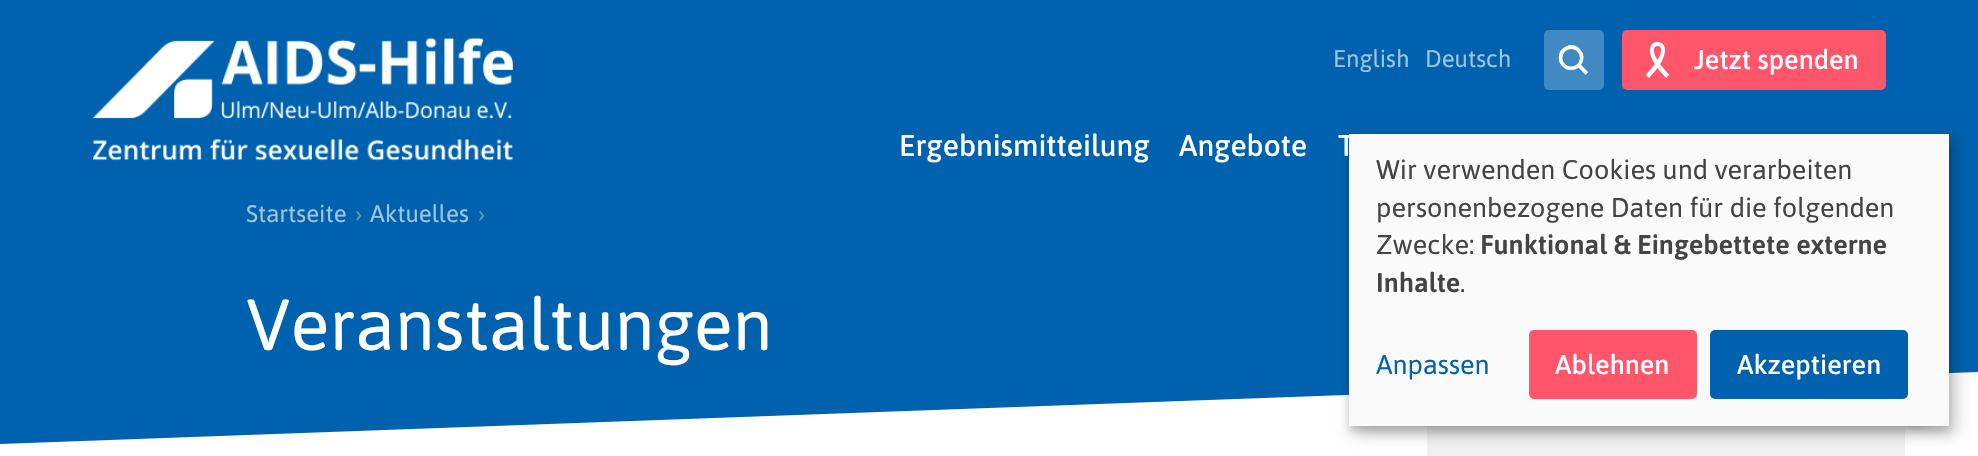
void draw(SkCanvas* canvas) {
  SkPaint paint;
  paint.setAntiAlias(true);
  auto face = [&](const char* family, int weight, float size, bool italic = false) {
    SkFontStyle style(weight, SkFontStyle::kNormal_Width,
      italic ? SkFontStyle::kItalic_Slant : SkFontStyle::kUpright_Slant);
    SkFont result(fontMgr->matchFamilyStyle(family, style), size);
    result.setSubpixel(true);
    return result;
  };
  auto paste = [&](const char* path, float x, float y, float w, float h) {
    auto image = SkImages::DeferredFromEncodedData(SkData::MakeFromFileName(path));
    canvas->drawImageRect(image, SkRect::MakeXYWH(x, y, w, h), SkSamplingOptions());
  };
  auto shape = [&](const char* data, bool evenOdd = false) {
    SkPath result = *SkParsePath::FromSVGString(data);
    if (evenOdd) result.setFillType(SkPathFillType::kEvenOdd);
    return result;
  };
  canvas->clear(0xffffffff);
  paint.setColor(0xff0062ae);
  canvas->drawRect(SkRect::MakeXYWH(0, 0, 1978, 249), paint);
  paste("img/1.png", 93, 37, 420, 124);
  paint.setColor(0xff4089c2);
  canvas->drawRoundRect(SkRect::MakeXYWH(1544, 30, 60, 60), 5, 5, paint);
  paste("img/2.png", 1558, 45, 31, 30);
  paint.setColor(0xffff566b);
  canvas->drawRoundRect(SkRect::MakeXYWH(1622, 30, 264, 60), 5, 5, paint);
  paste("img/3.png", 1645, 42, 25, 36);
  paint.setColor(0x33000000);
  paint.setMaskFilter(SkMaskFilter::MakeBlur(kNormal_SkBlurStyle, 4));
  canvas->drawRoundRect(SkRect::MakeXYWH(1889, 374, 52, 52), 26, 26, paint);
  paint.setMaskFilter(nullptr);
  paint.setColor(0xff0062ae);
  canvas->drawRect(SkRect::MakeXYWH(0, 249, 1978, 123), paint);
  canvas->drawPath(shape("M0 444V372H1978Z"), paint);
  paint.setColor(0xfff1f1f1);
  canvas->drawRect(SkRect::MakeXYWH(1427, 426, 478, 30), paint);
  paint.setColor(0x30000000);
  paint.setMaskFilter(SkMaskFilter::MakeBlur(kNormal_SkBlurStyle, 7.5f));
  canvas->drawRect(SkRect::MakeXYWH(1356, 141, 600, 293), paint);
  paint.setMaskFilter(nullptr);
  paint.setColor(0x33000000);
  paint.setMaskFilter(SkMaskFilter::MakeBlur(kNormal_SkBlurStyle, 4.5f));
  canvas->drawRect(SkRect::MakeXYWH(1349, 140, 600, 292), paint);
  paint.setMaskFilter(nullptr);
  auto f0 = face("Asap", 400, 24);
  paint.setColor(0xff9fc4e1);
  canvas->drawString("English", 1333, 67, f0, paint);
  canvas->drawString("Deutsch", 1425, 67, f0, paint);
  auto f1 = face("Asap", 500, 27);
  paint.setColor(0xffffffff);
  canvas->drawString("Jetzt spenden", 1694, 69, f1, paint);
  auto f2 = face("Asap", 500, 30);
  {
    const struct { const char* s; float x, y; } items[] = {
      {"Ergebnismitteilung", 899, 156},
      {"Angebote", 1179, 156},
      {"T", 1338, 156},
    };
    for (auto [s, x, y] : items) {
      canvas->drawString(s, x, y, f2, paint);
    }
  }
  paint.setColor(0xff9fc4e1);
  canvas->drawString("Startseite", 246, 222, f0, paint);
  paint.setColor(0xff609dcc);
  canvas->drawString("›", 355, 222, f0, paint);
  paint.setColor(0xff9fc4e1);
  canvas->drawString("Aktuelles", 370, 222, f0, paint);
  paint.setColor(0xff609dcc);
  canvas->drawString("›", 478, 222, f0, paint);
  auto f3 = face("Asap", 400, 72);
  paint.setColor(0xffffffff);
  canvas->drawString("Veranstaltungen", 246, 350, f3, paint);
  paint.setColor(0xfffafafa);
  canvas->drawRect(SkRect::MakeXYWH(1349, 134, 600, 292), paint);
  auto f4 = face("Asap", 400, 27);
  paint.setColor(0xff444444);
  {
    const struct { const char* s; float x, y; } items[] = {
      {"Wir verwenden Cookies und verarbeiten", 1376, 179},
      {"personenbezogene Daten für die folgenden", 1376, 217},
      {"Zwecke:", 1376, 254},
    };
    for (auto [s, x, y] : items) {
      canvas->drawString(s, x, y, f4, paint);
    }
  }
  auto f5 = face("Asap", 600, 27);
  canvas->drawString("Funktional & Eingebettete externe", 1480, 254, f5, paint);
  canvas->drawString("Inhalte", 1376, 292, f5, paint);
  canvas->drawString(".", 1460, 292, f4, paint);
  paint.setColor(0xff0062ae);
  canvas->drawString("Anpassen", 1376, 374, f4, paint);
  paint.setColor(0xffff566b);
  canvas->drawRoundRect(SkRect::MakeXYWH(1529, 330, 168, 69), 5, 5, paint);
  paint.setColor(0xffffffff);
  canvas->drawString("Ablehnen", 1555, 374, f1, paint);
  paint.setColor(0xff0062ae);
  canvas->drawRoundRect(SkRect::MakeXYWH(1710, 330, 198, 69), 5, 5, paint);
  paint.setColor(0xffffffff);
  canvas->drawString("Akzeptieren", 1737, 374, f1, paint);
}
